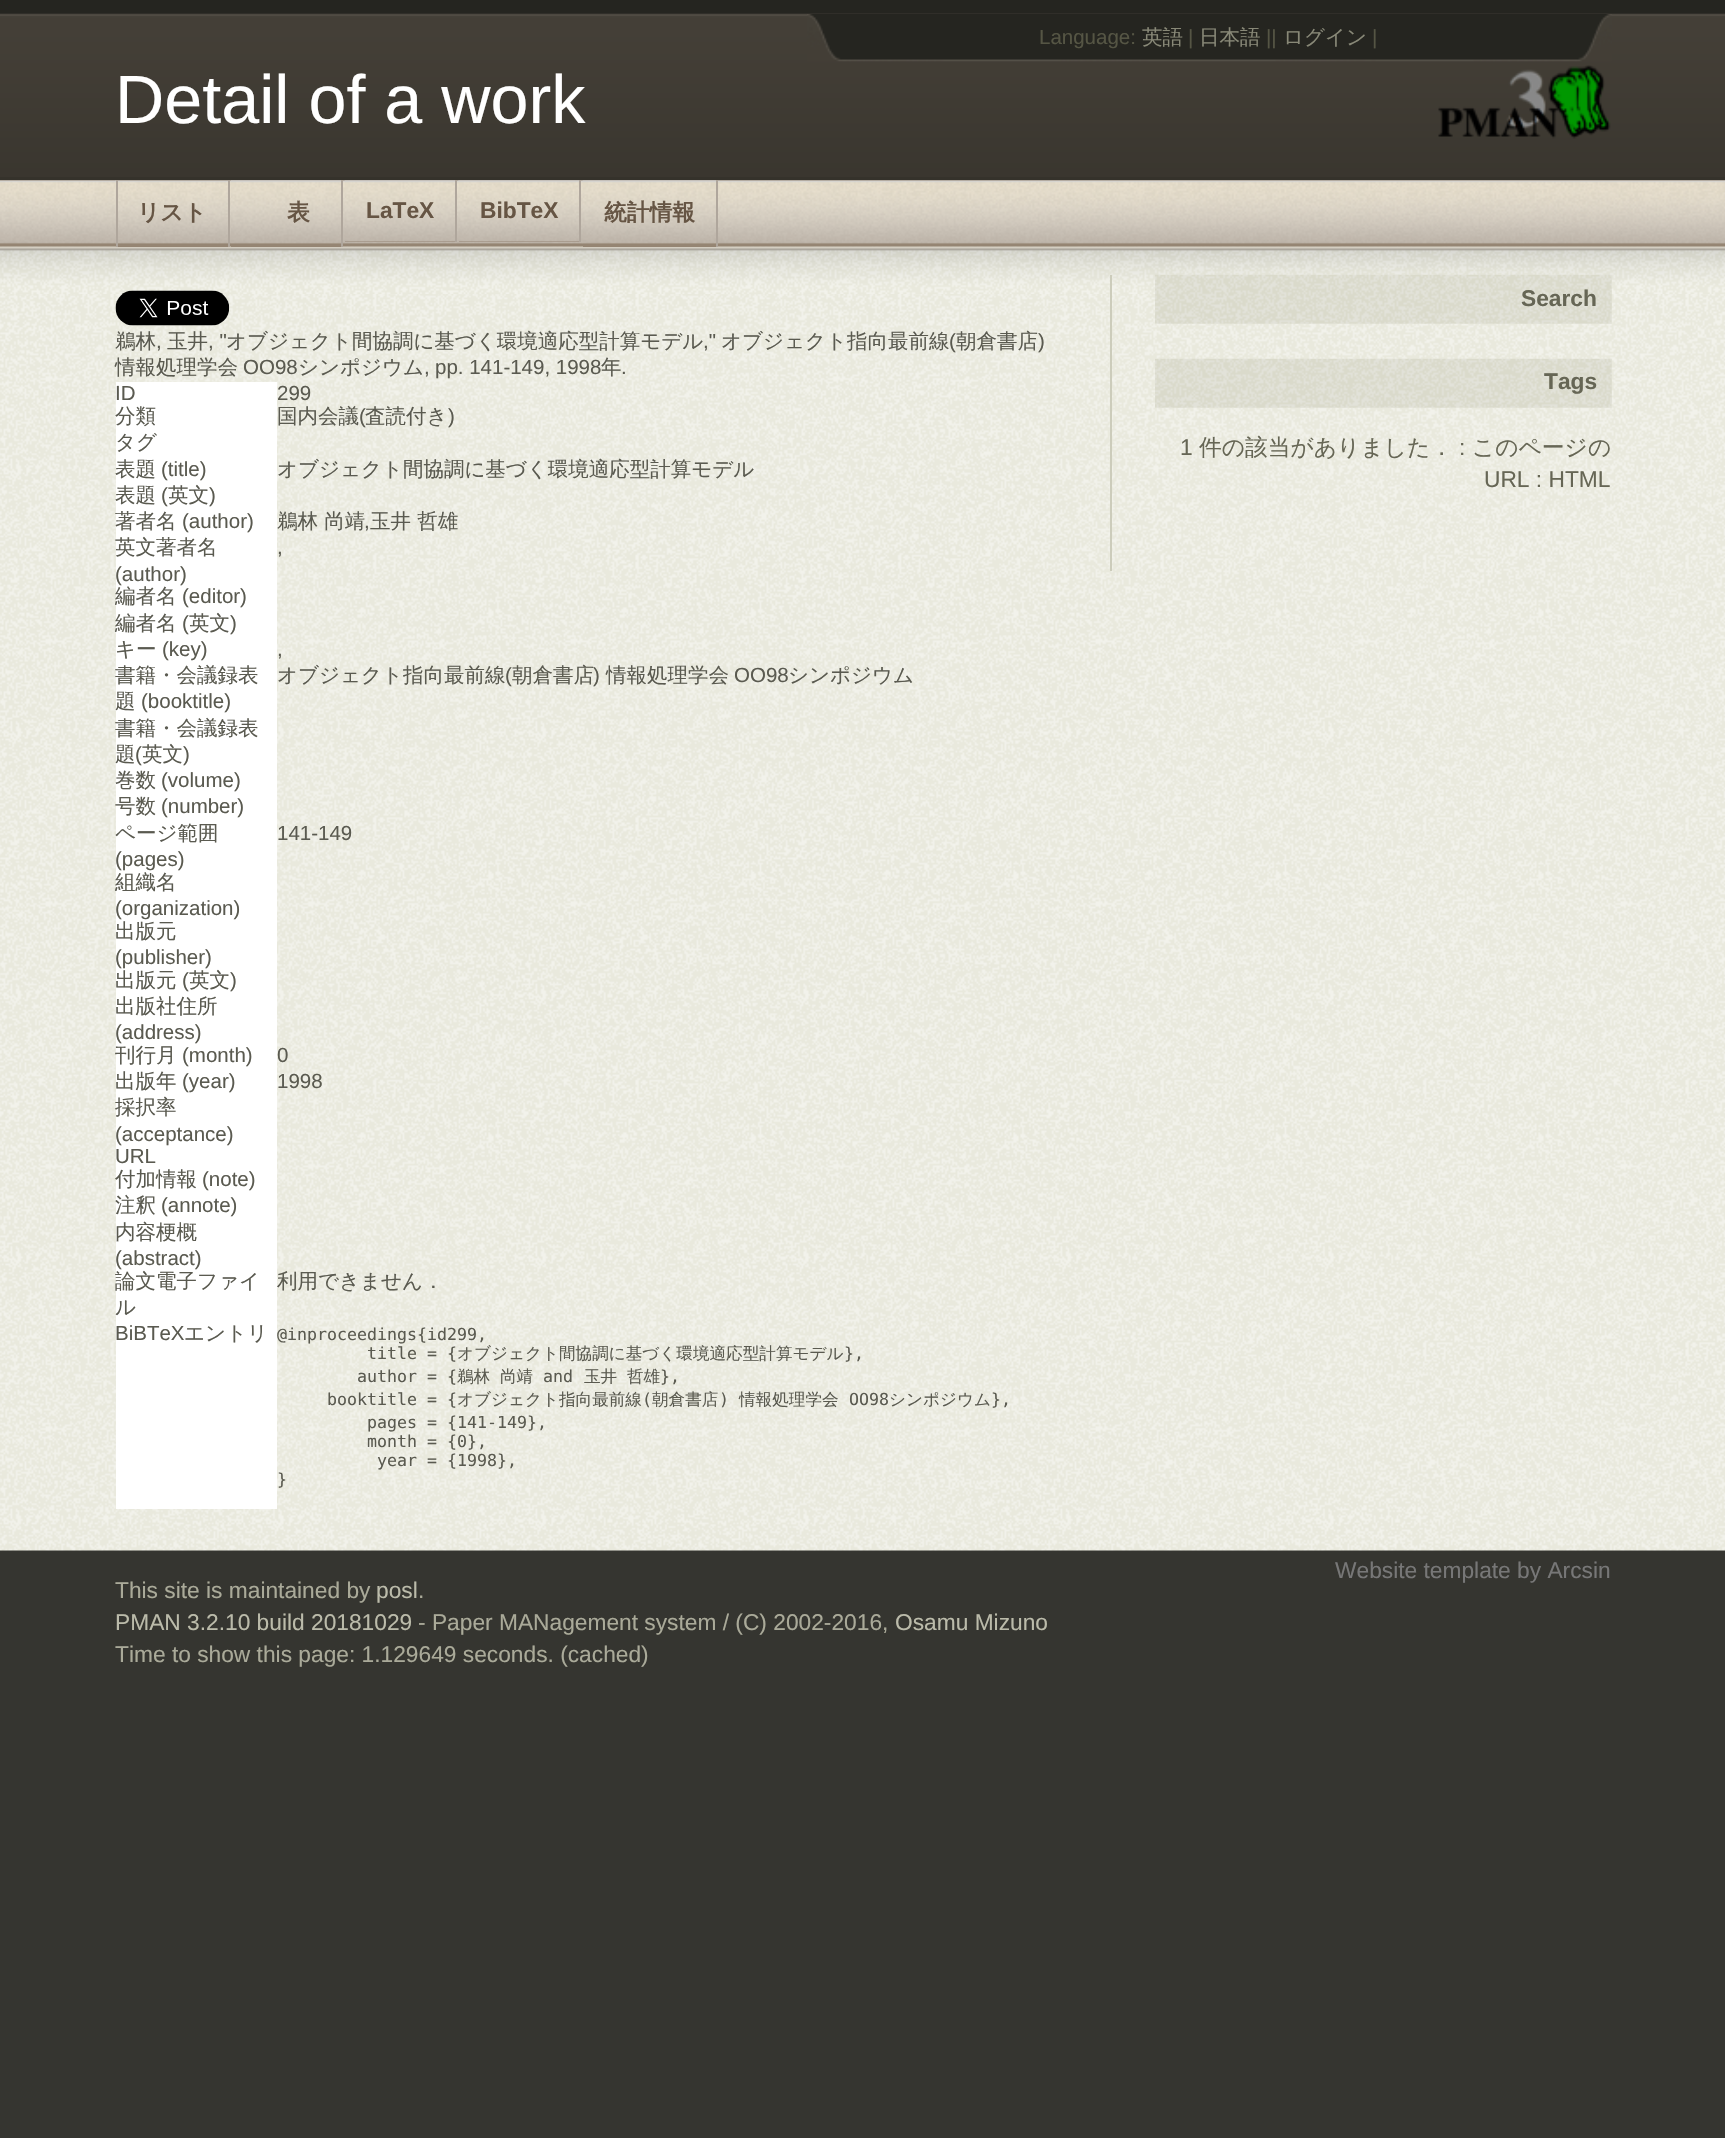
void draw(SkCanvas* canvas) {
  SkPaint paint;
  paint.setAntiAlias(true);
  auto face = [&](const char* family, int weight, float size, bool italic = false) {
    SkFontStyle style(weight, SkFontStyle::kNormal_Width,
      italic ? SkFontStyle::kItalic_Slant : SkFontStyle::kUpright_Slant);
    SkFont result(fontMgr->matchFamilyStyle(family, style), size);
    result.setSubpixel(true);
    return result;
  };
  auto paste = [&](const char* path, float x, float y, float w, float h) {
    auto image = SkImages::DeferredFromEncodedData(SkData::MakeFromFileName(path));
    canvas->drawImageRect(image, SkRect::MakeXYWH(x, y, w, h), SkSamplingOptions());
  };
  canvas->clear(0xff353530);
  paint.setColor(0xff35322b);
  canvas->drawRect(SkRect::MakeXYWH(0, 177, 1725, 3), paint);
  paste("img/1.png", 0, 0, 1725, 177);
  paste("img/2.png", 807, 14, 805, 48);
  paste("img/3.png", 1438, 65, 173, 74);
  paint.setColor(0xff958573);
  canvas->drawRect(SkRect::MakeXYWH(0, 180, 1725, 67), paint);
  paste("img/4.png", 0, 180, 1725, 64);
  paste("img/10.png", 0, 246, 1725, 1305);
  paste("img/11.png", 0, 246, 1725, 48);
  canvas->drawRect(SkRect::MakeXYWH(118, 180, 110, 67), paint);
  paste("img/5.png", 115, 180, 113, 64);
  {
    const struct { float x, y, w, h; SkColor color; } items[] = {
      {228, 180, 2, 67, 0xffafa69c},
      {116, 180, 2, 67, 0xffafa69c},
      {231, 180, 110, 67, 0xff958573},
    };
    for (auto [x, y, w, h, color] : items) {
      paint.setColor(color);
      canvas->drawRect(SkRect::MakeXYWH(x, y, w, h), paint);
    }
  }
  paste("img/6.png", 231, 180, 110, 64);
  paint.setColor(0xffafa69c);
  canvas->drawRect(SkRect::MakeXYWH(341, 180, 2, 67), paint);
  paint.setColor(0xff958573);
  canvas->drawRect(SkRect::MakeXYWH(345, 180, 110, 62), paint);
  paste("img/7.png", 344, 180, 111, 62);
  paint.setColor(0xffafa69c);
  canvas->drawRect(SkRect::MakeXYWH(455, 180, 2, 62), paint);
  paint.setColor(0xff958573);
  canvas->drawRect(SkRect::MakeXYWH(459, 180, 120, 62), paint);
  paste("img/8.png", 458, 180, 121, 62);
  paint.setColor(0xffafa69c);
  canvas->drawRect(SkRect::MakeXYWH(579, 180, 2, 62), paint);
  paint.setColor(0xff958573);
  canvas->drawRect(SkRect::MakeXYWH(583, 180, 133, 67), paint);
  paste("img/9.png", 582, 180, 134, 64);
  paint.setColor(0xffafa69c);
  canvas->drawRect(SkRect::MakeXYWH(716, 180, 2, 67), paint);
  paste("img/12.png", 115, 290, 115, 36);
  paint.setColor(0xffffffff);
  canvas->drawRect(SkRect::MakeXYWH(116, 382, 161, 1127), paint);
  paint.setColor(0xffccccbb);
  canvas->drawRect(SkRect::MakeXYWH(1110, 275, 2, 296), paint);
  paste("img/13.png", 1155, 274, 457, 50);
  paste("img/14.png", 1155, 358, 457, 50);
  auto f0 = face("Liberation Sans", 400, 20.5f);
  paint.setColor(0xff555544);
  canvas->drawString("Language:", 1039, 44, f0, paint);
  auto f1 = face("WenQuanYi Zen Hei", 500, 20.5f);
  paint.setColor(0xff888877);
  canvas->drawString("英語", 1142, 44, f1, paint);
  paint.setColor(0xff555544);
  canvas->drawString("|", 1188, 44, f0, paint);
  paint.setColor(0xff888877);
  canvas->drawString("日本語", 1199, 44, f1, paint);
  paint.setColor(0xff555544);
  canvas->drawString("||", 1266, 44, f0, paint);
  paint.setColor(0xff888877);
  canvas->drawString("ログイン", 1283, 44, f1, paint);
  paint.setColor(0xff555544);
  canvas->drawString("|", 1372, 44, f0, paint);
  auto f2 = face("Liberation Sans", 400, 68.25f);
  paint.setColor(0xffffffff);
  canvas->drawString("Detail of a work", 115, 123, f2, paint);
  auto f3 = face("WenQuanYi Zen Hei", 700, 22.75f);
  paint.setColor(0xff665544);
  canvas->drawString("リスト", 137, 220, f3, paint);
  canvas->drawString("表", 287, 220, f3, paint);
  auto f4 = face("Liberation Sans", 700, 22.75f);
  canvas->drawString("LaTeX", 366, 218, f4, paint);
  canvas->drawString("BibTeX", 480, 218, f4, paint);
  canvas->drawString("統計情報", 604, 220, f3, paint);
  paint.setColor(0xff5a5a50);
  canvas->drawString("鵜林", 115, 348, f1, paint);
  canvas->drawString(",", 156, 348, f0, paint);
  canvas->drawString("玉井", 167, 348, f1, paint);
  canvas->drawString(", \"", 208, 348, f0, paint);
  canvas->drawString("オブジェクト間協調に基づく環境適応型計算モデル", 226, 348, f1, paint);
  canvas->drawString(",\"", 703, 348, f0, paint);
  canvas->drawString("オブジェクト指向最前線", 721, 348, f1, paint);
  canvas->drawString("(", 949, 348, f0, paint);
  canvas->drawString("朝倉書店", 956, 348, f1, paint);
  canvas->drawString(")", 1038, 348, f0, paint);
  canvas->drawString("情報処理学会", 115, 374, f1, paint);
  canvas->drawString("OO98", 243, 374, f0, paint);
  canvas->drawString("シンポジウム", 298, 374, f1, paint);
  canvas->drawString(",", 424, 374, f0, paint);
  canvas->drawString("pp. 141-149, 1998", 435, 374, f0, paint);
  canvas->drawString("年", 601, 374, f1, paint);
  {
    const struct { const char* s; float x, y; } items[] = {
      {".", 621, 374},
      {"ID", 115, 400},
      {"299", 277, 400},
    };
    for (auto [s, x, y] : items) {
      canvas->drawString(s, x, y, f0, paint);
    }
  }
  canvas->drawString("分類", 115, 423, f1, paint);
  canvas->drawString("国内会議", 277, 423, f1, paint);
  canvas->drawString("(", 359, 423, f0, paint);
  canvas->drawString("査読付き", 365, 423, f1, paint);
  canvas->drawString(")", 448, 423, f0, paint);
  canvas->drawString("タグ", 115, 449, f1, paint);
  canvas->drawString("表題", 115, 476, f1, paint);
  canvas->drawString("(title)", 161, 476, f0, paint);
  canvas->drawString("オブジェクト間協調に基づく環境適応型計算モデル", 277, 476, f1, paint);
  canvas->drawString("表題", 115, 502, f1, paint);
  canvas->drawString("(", 161, 502, f0, paint);
  canvas->drawString("英文", 168, 502, f1, paint);
  canvas->drawString(")", 209, 502, f0, paint);
  canvas->drawString("著者名", 115, 528, f1, paint);
  canvas->drawString("(author)", 182, 528, f0, paint);
  canvas->drawString("鵜林 尚靖", 277, 528, f1, paint);
  canvas->drawString(",", 364, 528, f0, paint);
  canvas->drawString("玉井 哲雄", 370, 528, f1, paint);
  canvas->drawString("英文著者名", 115, 554, f1, paint);
  canvas->drawString("(author)", 115, 581, f0, paint);
  canvas->drawString(",", 277, 554, f0, paint);
  canvas->drawString("編者名", 115, 603, f1, paint);
  canvas->drawString("(editor)", 182, 603, f0, paint);
  canvas->drawString("編者名", 115, 630, f1, paint);
  canvas->drawString("(", 182, 630, f0, paint);
  canvas->drawString("英文", 189, 630, f1, paint);
  canvas->drawString(")", 230, 630, f0, paint);
  canvas->drawString("キー", 115, 656, f1, paint);
  canvas->drawString("(key)", 162, 656, f0, paint);
  canvas->drawString(",", 277, 656, f0, paint);
  canvas->drawString("書籍・会議録表", 115, 682, f1, paint);
  canvas->drawString("題", 115, 708, f1, paint);
  canvas->drawString("(booktitle)", 141, 708, f0, paint);
  canvas->drawString("オブジェクト指向最前線", 277, 682, f1, paint);
  canvas->drawString("(", 505, 682, f0, paint);
  canvas->drawString("朝倉書店", 512, 682, f1, paint);
  canvas->drawString(")", 593, 682, f0, paint);
  canvas->drawString("情報処理学会", 606, 682, f1, paint);
  canvas->drawString("OO98", 734, 682, f0, paint);
  {
    const struct { const char* s; float x, y; } items[] = {
      {"シンポジウム", 788, 682},
      {"書籍・会議録表", 115, 735},
      {"題", 115, 761},
    };
    for (auto [s, x, y] : items) {
      canvas->drawString(s, x, y, f1, paint);
    }
  }
  canvas->drawString("(", 135, 761, f0, paint);
  canvas->drawString("英文", 142, 761, f1, paint);
  canvas->drawString(")", 183, 761, f0, paint);
  canvas->drawString("巻数", 115, 787, f1, paint);
  canvas->drawString("(volume)", 161, 787, f0, paint);
  canvas->drawString("号数", 115, 813, f1, paint);
  canvas->drawString("(number)", 161, 813, f0, paint);
  canvas->drawString("ページ範囲", 115, 840, f1, paint);
  canvas->drawString("(pages)", 115, 866, f0, paint);
  canvas->drawString("141-149", 277, 840, f0, paint);
  canvas->drawString("組織名", 115, 889, f1, paint);
  canvas->drawString("(organization)", 115, 915, f0, paint);
  canvas->drawString("出版元", 115, 938, f1, paint);
  canvas->drawString("(publisher)", 115, 964, f0, paint);
  canvas->drawString("出版元", 115, 987, f1, paint);
  canvas->drawString("(", 182, 987, f0, paint);
  canvas->drawString("英文", 189, 987, f1, paint);
  canvas->drawString(")", 230, 987, f0, paint);
  canvas->drawString("出版社住所", 115, 1013, f1, paint);
  canvas->drawString("(address)", 115, 1039, f0, paint);
  canvas->drawString("刊行月", 115, 1062, f1, paint);
  canvas->drawString("(month)", 182, 1062, f0, paint);
  canvas->drawString("0", 277, 1062, f0, paint);
  canvas->drawString("出版年", 115, 1088, f1, paint);
  canvas->drawString("(year)", 182, 1088, f0, paint);
  canvas->drawString("1998", 277, 1088, f0, paint);
  canvas->drawString("採択率", 115, 1114, f1, paint);
  canvas->drawString("(acceptance)", 115, 1141, f0, paint);
  canvas->drawString("URL", 115, 1163, f0, paint);
  canvas->drawString("付加情報", 115, 1186, f1, paint);
  canvas->drawString("(note)", 202, 1186, f0, paint);
  canvas->drawString("注釈", 115, 1212, f1, paint);
  canvas->drawString("(annote)", 161, 1212, f0, paint);
  canvas->drawString("内容梗概", 115, 1239, f1, paint);
  canvas->drawString("(abstract)", 115, 1265, f0, paint);
  {
    const struct { const char* s; float x, y; } items[] = {
      {"論文電子ファイ", 115, 1288},
      {"ル", 115, 1314},
      {"利用できません．", 277, 1288},
    };
    for (auto [s, x, y] : items) {
      canvas->drawString(s, x, y, f1, paint);
    }
  }
  canvas->drawString("BiBTeX", 115, 1340, f0, paint);
  canvas->drawString("エントリ", 184, 1340, f1, paint);
  auto f5 = face("DejaVu Sans Mono", 400, 16.6f);
  canvas->drawString("@inproceedings{id299,", 277, 1340, f5, paint);
  canvas->drawString("title = {", 367, 1359, f5, paint);
  auto f6 = face("WenQuanYi Zen Hei", 500, 16.6f);
  canvas->drawString("オブジェクト間協調に基づく環境適応型計算モデル", 457, 1359, f6, paint);
  canvas->drawString("},", 844, 1359, f5, paint);
  canvas->drawString("author = {", 357, 1382, f5, paint);
  canvas->drawString("鵜林", 457, 1382, f6, paint);
  canvas->drawString("尚靖", 500, 1382, f6, paint);
  canvas->drawString("and", 543, 1382, f5, paint);
  canvas->drawString("玉井", 584, 1382, f6, paint);
  canvas->drawString("哲雄", 627, 1382, f6, paint);
  canvas->drawString("},", 660, 1382, f5, paint);
  canvas->drawString("booktitle = {", 327, 1405, f5, paint);
  canvas->drawString("オブジェクト指向最前線", 457, 1405, f6, paint);
  canvas->drawString("(", 642, 1405, f5, paint);
  canvas->drawString("朝倉書店", 652, 1405, f6, paint);
  canvas->drawString(")", 719, 1405, f5, paint);
  canvas->drawString("情報処理学会", 739, 1405, f6, paint);
  canvas->drawString("OO98", 849, 1405, f5, paint);
  canvas->drawString("シンポジウム", 889, 1405, f6, paint);
  {
    const struct { const char* s; float x, y; } items[] = {
      {"},", 991, 1405},
      {"pages = {141-149},", 367, 1428},
      {"month = {0},", 367, 1447},
      {"year = {1998},", 377, 1466},
      {"}", 277, 1485},
    };
    for (auto [s, x, y] : items) {
      canvas->drawString(s, x, y, f5, paint);
    }
  }
  paint.setColor(0xff666655);
  canvas->drawString("Search", 1521, 306, f4, paint);
  canvas->drawString("Tags", 1544, 389, f4, paint);
  auto f7 = face("Liberation Sans", 400, 22.75f);
  canvas->drawString("1", 1180, 455, f7, paint);
  auto f8 = face("WenQuanYi Zen Hei", 500, 22.75f);
  canvas->drawString("件の該当がありました．", 1199, 455, f8, paint);
  canvas->drawString(":", 1459, 455, f7, paint);
  canvas->drawString("このページの", 1472, 455, f8, paint);
  canvas->drawString("URL : HTML", 1484, 487, f7, paint);
  paint.setColor(0xff777777);
  canvas->drawString("Website template by Arcsin", 1335, 1578, f7, paint);
  paint.setColor(0xffaaaa99);
  canvas->drawString("This site is maintained by", 115, 1598, f7, paint);
  paint.setColor(0xffbbbbaa);
  canvas->drawString("posl", 376, 1598, f7, paint);
  paint.setColor(0xffaaaa99);
  canvas->drawString(".", 418, 1598, f7, paint);
  paint.setColor(0xffbbbbaa);
  canvas->drawString("PMAN 3.2.10 build 20181029", 115, 1630, f7, paint);
  paint.setColor(0xffaaaa99);
  canvas->drawString("- Paper MANagement system / (C) 2002-2016,", 418, 1630, f7, paint);
  paint.setColor(0xffbbbbaa);
  canvas->drawString("Osamu Mizuno", 895, 1630, f7, paint);
  paint.setColor(0xffaaaa99);
  canvas->drawString("Time to show this page: 1.129649 seconds. (cached)", 115, 1662, f7, paint);
}
